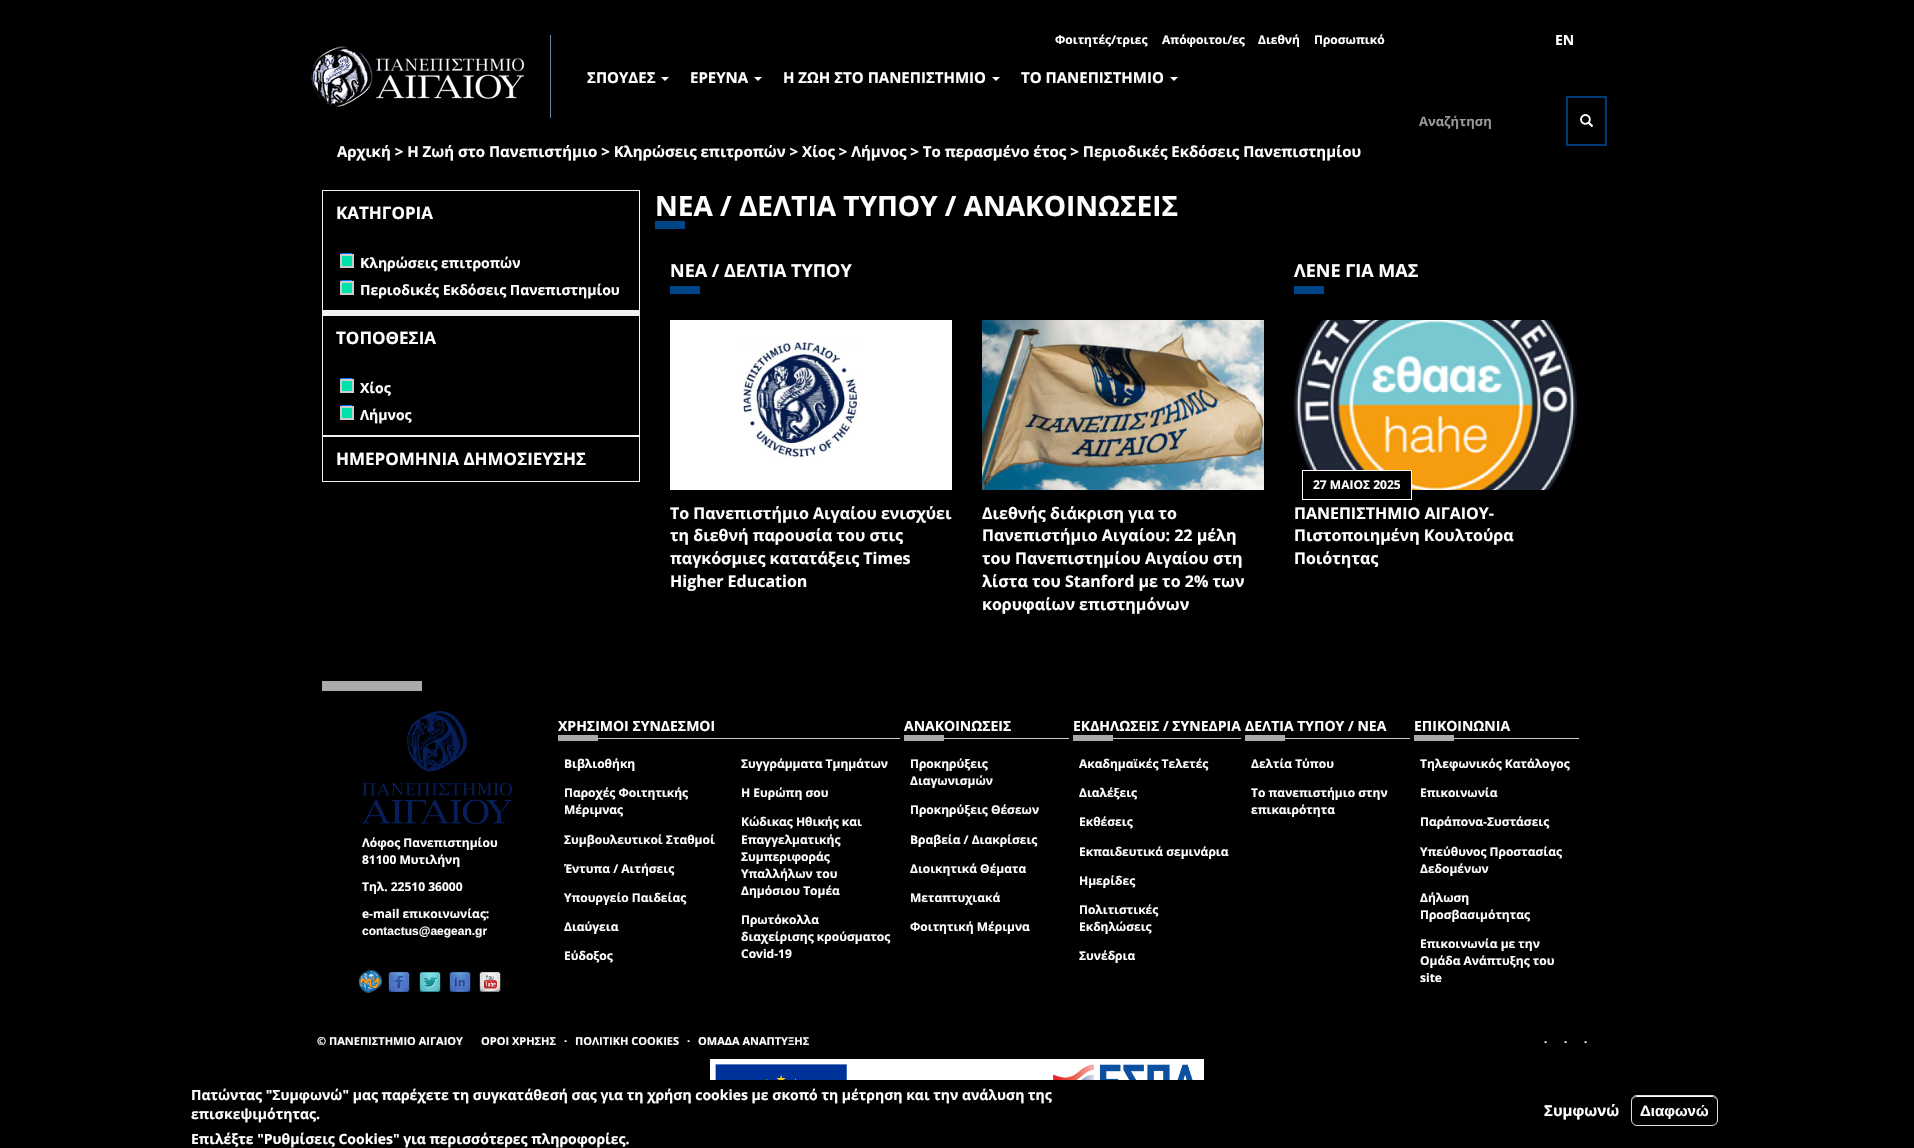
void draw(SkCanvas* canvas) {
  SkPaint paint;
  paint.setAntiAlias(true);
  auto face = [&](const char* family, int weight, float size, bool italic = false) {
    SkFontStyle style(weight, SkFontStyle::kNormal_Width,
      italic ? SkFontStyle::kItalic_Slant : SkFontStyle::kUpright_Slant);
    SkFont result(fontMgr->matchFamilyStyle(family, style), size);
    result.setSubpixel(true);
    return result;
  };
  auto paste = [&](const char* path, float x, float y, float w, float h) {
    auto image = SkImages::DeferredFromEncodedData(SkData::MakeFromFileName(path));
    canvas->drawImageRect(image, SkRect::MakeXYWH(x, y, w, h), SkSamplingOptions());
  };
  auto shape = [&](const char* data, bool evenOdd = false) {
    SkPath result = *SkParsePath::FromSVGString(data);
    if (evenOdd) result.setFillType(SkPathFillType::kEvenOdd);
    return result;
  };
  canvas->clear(0xff000000);
  paint.setColor(0xff6b88a6);
  canvas->drawRect(SkRect::MakeXYWH(550, 35, 1, 83), paint);
  paste("img/1.png", 311, 46, 214, 61);
  paint.setColor(0xffffffff);
  canvas->drawPath(shape("M661 77H669L665 81Z"), paint);
  canvas->drawPath(shape("M754 77H762L758 81Z"), paint);
  canvas->drawPath(shape("M992 77H1000L996 81Z"), paint);
  canvas->drawPath(shape("M1170 77H1178L1174 81Z"), paint);
  paint.setStroke(true);
  paint.setStrokeWidth(2);
  paint.setColor(0xff003a74);
  canvas->drawRect(SkRect::MakeXYWH(1567, 97, 39, 48), paint);
  paste("img/2.png", 1580, 114, 14, 13);
  paint.setStrokeWidth(1);
  paint.setColor(0xfff2f2f2);
  canvas->drawRect(SkRect::MakeXYWH(322.5f, 190.5f, 317, 120), paint);
  paint.setStroke(false);
  paint.setColor(0xff0075ff);
  canvas->drawRoundRect(SkRect::MakeXYWH(340, 253, 13, 13), 2, 2, paint);
  paint.setColor(0xff00e2aa);
  canvas->drawRect(SkRect::MakeXYWH(341, 255, 12, 12), paint);
  paint.setStroke(true);
  paint.setStrokeWidth(2);
  paint.setColor(0xffcccccc);
  canvas->drawRect(SkRect::MakeXYWH(341, 255, 12, 12), paint);
  paint.setStroke(false);
  paint.setColor(0xff0075ff);
  canvas->drawRoundRect(SkRect::MakeXYWH(340, 280, 13, 13), 2, 2, paint);
  paint.setColor(0xff00e2aa);
  canvas->drawRect(SkRect::MakeXYWH(341, 282, 12, 12), paint);
  paint.setStroke(true);
  paint.setColor(0xffcccccc);
  canvas->drawRect(SkRect::MakeXYWH(341, 282, 12, 12), paint);
  paint.setStroke(false);
  paint.setColor(0xfff2f2f2);
  canvas->drawRect(SkRect::MakeXYWH(322, 311, 318, 4), paint);
  paint.setStroke(true);
  paint.setStrokeWidth(1);
  canvas->drawRect(SkRect::MakeXYWH(322.5f, 315.5f, 317, 120), paint);
  paint.setStroke(false);
  paint.setColor(0xff0075ff);
  canvas->drawRoundRect(SkRect::MakeXYWH(340, 378, 13, 13), 2, 2, paint);
  paint.setColor(0xff00e2aa);
  canvas->drawRect(SkRect::MakeXYWH(341, 380, 12, 12), paint);
  paint.setStroke(true);
  paint.setStrokeWidth(2);
  paint.setColor(0xffcccccc);
  canvas->drawRect(SkRect::MakeXYWH(341, 380, 12, 12), paint);
  paint.setStroke(false);
  paint.setColor(0xff0075ff);
  canvas->drawRoundRect(SkRect::MakeXYWH(340, 405, 13, 13), 2, 2, paint);
  paint.setColor(0xff00e2aa);
  canvas->drawRect(SkRect::MakeXYWH(341, 407, 12, 12), paint);
  paint.setStroke(true);
  paint.setColor(0xffcccccc);
  canvas->drawRect(SkRect::MakeXYWH(341, 407, 12, 12), paint);
  paint.setStrokeWidth(1);
  paint.setColor(0xfff2f2f2);
  canvas->drawRect(SkRect::MakeXYWH(322.5f, 436.5f, 317, 45), paint);
  paint.setStroke(false);
  paint.setColor(0xff004588);
  canvas->drawRect(SkRect::MakeXYWH(655, 221, 30, 8), paint);
  canvas->drawRect(SkRect::MakeXYWH(670, 286, 30, 8), paint);
  paste("img/3.png", 670, 320, 282, 170);
  paste("img/4.png", 982, 320, 282, 170);
  canvas->drawRect(SkRect::MakeXYWH(1294, 286, 30, 8), paint);
  paste("img/5.png", 1294, 320, 283, 170);
  paint.setColor(0xff000000);
  canvas->drawRect(SkRect::MakeXYWH(1310, 471, 101, 19), paint);
  paint.setStroke(true);
  paint.setColor(0xffffffff);
  canvas->drawRect(SkRect::MakeXYWH(1302.5f, 470.5f, 109, 29), paint);
  paint.setStroke(false);
  paint.setColor(0xffaaaaaa);
  canvas->drawRect(SkRect::MakeXYWH(322, 681, 100, 10), paint);
  paste("img/6.png", 362, 711, 150, 113);
  paste("img/7.png", 388, 972, 22, 20);
  paste("img/8.png", 419, 972, 22, 20);
  paste("img/9.png", 449, 972, 22, 20);
  paste("img/10.png", 479, 972, 22, 20);
  {
    const struct { float x, y, w, h; SkColor color; } items[] = {
      {598, 738, 302, 1, 0xffcccccc},
      {558, 735, 40, 6, 0xffaaaaaa},
      {944, 738, 125, 1, 0xffcccccc},
      {904, 735, 40, 6, 0xffaaaaaa},
      {1113, 738, 128, 1, 0xffcccccc},
      {1073, 735, 40, 6, 0xffaaaaaa},
      {1285, 738, 125, 1, 0xffcccccc},
      {1245, 735, 40, 6, 0xffaaaaaa},
      {1454, 738, 125, 1, 0xffcccccc},
      {1414, 735, 40, 6, 0xffaaaaaa},
    };
    for (auto [x, y, w, h, color] : items) {
      paint.setColor(color);
      canvas->drawRect(SkRect::MakeXYWH(x, y, w, h), paint);
    }
  }
  paste("img/11.png", 359, 970, 23, 23);
  paste("img/12.png", 710, 1059, 494, 21);
  paint.setColor(0xffffffff);
  canvas->drawPath(shape("M1637 1097H1712C1715 1097 1717 1099 1717 1102C1717 1093 1705 1096 1700 1096H1650C1644 1096 1632 1093 1632 1102C1632 1099 1634 1097 1637 1097Z"), paint);
  paint.setStroke(true);
  paint.setColor(0xffdcdcdc);
  canvas->drawRoundRect(SkRect::MakeXYWH(1631.5f, 1095.5f, 86, 30), 5.5f, 5.5f, paint);
  auto f0 = face("Open Sans", 700, 12);
  paint.setStroke(false);
  paint.setColor(0xffffffff);
  {
    const struct { const char* s; float x, y; } items[] = {
      {"Φοιτητές/τριες", 1055, 44},
      {"Απόφοιτοι/ες", 1162, 44},
      {"Διεθνή", 1258, 44},
      {"Προσωπικό", 1314, 44},
    };
    for (auto [s, x, y] : items) {
      canvas->drawString(s, x, y, f0, paint);
    }
  }
  auto f1 = face("Open Sans", 700, 14);
  canvas->drawString("EN", 1555, 45, f1, paint);
  auto f2 = face("Open Sans", 700, 15);
  {
    const struct { const char* s; float x, y; } items[] = {
      {"ΣΠΟΥΔΕΣ", 587, 83},
      {"ΕΡΕΥΝΑ", 690, 83},
      {"Η ΖΩΗ ΣΤΟ ΠΑΝΕΠΙΣΤΗΜΙΟ", 783, 83},
      {"ΤΟ ΠΑΝΕΠΙΣΤΗΜΙΟ", 1021, 83},
    };
    for (auto [s, x, y] : items) {
      canvas->drawString(s, x, y, f2, paint);
    }
  }
  auto f3 = face("Open Sans", 700, 13);
  paint.setColor(0xff999999);
  canvas->drawString("Αναζήτηση", 1419, 126, f3, paint);
  paint.setColor(0xffffffff);
  canvas->drawString("Αρχική > Η Ζωή στο Πανεπιστήμιο > Κληρώσεις επιτροπών > Χίος > Λήμνος > Το περασμένο έτος > Περιοδικές Εκδόσεις Πανεπιστημίου", 337, 157, f2, paint);
  auto f4 = face("Open Sans", 700, 17);
  canvas->drawString("ΚΑΤΗΓΟΡΙΑ", 336, 219, f4, paint);
  canvas->drawString("Κληρώσεις επιτροπών", 360, 268, f1, paint);
  canvas->drawString("Περιοδικές Εκδόσεις Πανεπιστημίου", 360, 295, f1, paint);
  canvas->drawString("ΤΟΠΟΘΕΣΙΑ", 336, 344, f4, paint);
  canvas->drawString("Χίος", 360, 393, f1, paint);
  canvas->drawString("Λήμνος", 360, 420, f1, paint);
  canvas->drawString("ΗΜΕΡΟΜΗΝΙΑ ΔΗΜΟΣΙΕΥΣΗΣ", 336, 465, f4, paint);
  auto f5 = face("Open Sans", 700, 28);
  canvas->drawString("ΝΕΑ / ΔΕΛΤΙΑ ΤΥΠΟΥ / ΑΝΑΚΟΙΝΩΣΕΙΣ", 655, 216, f5, paint);
  auto f6 = face("Open Sans", 700, 18);
  canvas->drawString("ΝΕΑ / ΔΕΛΤΙΑ ΤΥΠΟΥ", 670, 277, f6, paint);
  auto f7 = face("Open Sans", 700, 16);
  {
    const struct { const char* s; float x, y; } items[] = {
      {"Το Πανεπιστήμιο Αιγαίου ενισχύει", 670, 519},
      {"τη διεθνή παρουσία του στις", 670, 541},
      {"παγκόσμιες κατατάξεις Times", 670, 564},
      {"Higher Education", 670, 587},
      {"Διεθνής διάκριση για το", 982, 519},
      {"Πανεπιστήμιο Αιγαίου: 22 μέλη", 982, 541},
      {"του Πανεπιστημίου Αιγαίου στη", 982, 564},
      {"λίστα του Stanford με το 2% των", 982, 587},
      {"κορυφαίων επιστημόνων", 982, 610},
    };
    for (auto [s, x, y] : items) {
      canvas->drawString(s, x, y, f7, paint);
    }
  }
  canvas->drawString("ΛΕΝΕ ΓΙΑ ΜΑΣ", 1294, 277, f6, paint);
  canvas->drawString("27 ΜΑΙΟΣ 2025", 1313, 489, f0, paint);
  {
    const struct { const char* s; float x, y; } items[] = {
      {"ΠΑΝΕΠΙΣΤΗΜΙΟ ΑΙΓΑΙΟΥ-", 1294, 519},
      {"Πιστοποιημένη Κουλτούρα", 1294, 541},
      {"Ποιότητας", 1294, 564},
    };
    for (auto [s, x, y] : items) {
      canvas->drawString(s, x, y, f7, paint);
    }
  }
  {
    const struct { const char* s; float x, y; } items[] = {
      {"Λόφος Πανεπιστημίου", 362, 847},
      {"81100 Μυτιλήνη", 362, 864},
      {"Τηλ. 22510 36000", 362, 891},
      {"e-mail επικοινωνίας:", 362, 918},
    };
    for (auto [s, x, y] : items) {
      canvas->drawString(s, x, y, f0, paint);
    }
  }
  auto f8 = face("Liberation Sans", 700, 12);
  canvas->drawString("contactus@aegean.gr", 362, 935, f8, paint);
  canvas->drawString("ΧΡΗΣΙΜΟΙ ΣΥΝΔΕΣΜΟΙ", 558, 731, f1, paint);
  {
    const struct { const char* s; float x, y; } items[] = {
      {"Βιβλιοθήκη", 564, 768},
      {"Συγγράμματα Τμημάτων", 741, 768},
      {"Παροχές Φοιτητικής", 564, 797},
      {"Μέριμνας", 564, 814},
      {"Η Ευρώπη σου", 741, 797},
      {"Συμβουλευτικοί Σταθμοί", 564, 844},
      {"Κώδικας Ηθικής και", 741, 826},
      {"Επαγγελματικής", 741, 844},
      {"Συμπεριφοράς", 741, 861},
      {"Υπαλλήλων του", 741, 878},
      {"Δημόσιου Τομέα", 741, 895},
      {"Έντυπα / Αιτήσεις", 564, 873},
      {"Υπουργείο Παιδείας", 564, 902},
      {"Διαύγεια", 564, 931},
      {"Πρωτόκολλα", 741, 924},
      {"διαχείρισης κρούσματος", 741, 941},
      {"Covid-19", 741, 958},
      {"Εύδοξος", 564, 960},
    };
    for (auto [s, x, y] : items) {
      canvas->drawString(s, x, y, f0, paint);
    }
  }
  canvas->drawString("ΑΝΑΚΟΙΝΩΣΕΙΣ", 904, 731, f1, paint);
  {
    const struct { const char* s; float x, y; } items[] = {
      {"Προκηρύξεις", 910, 768},
      {"Διαγωνισμών", 910, 785},
      {"Προκηρύξεις Θέσεων", 910, 814},
      {"Βραβεία / Διακρίσεις", 910, 844},
      {"Διοικητικά Θέματα", 910, 873},
      {"Μεταπτυχιακά", 910, 902},
      {"Φοιτητική Μέριμνα", 910, 931},
    };
    for (auto [s, x, y] : items) {
      canvas->drawString(s, x, y, f0, paint);
    }
  }
  canvas->drawString("ΕΚΔΗΛΩΣΕΙΣ / ΣΥΝΕΔΡΙΑ", 1073, 731, f1, paint);
  {
    const struct { const char* s; float x, y; } items[] = {
      {"Ακαδημαϊκές Τελετές", 1079, 768},
      {"Διαλέξεις", 1079, 797},
      {"Εκθέσεις", 1079, 826},
      {"Εκπαιδευτικά σεμινάρια", 1079, 856},
      {"Ημερίδες", 1079, 885},
      {"Πολιτιστικές", 1079, 914},
      {"Εκδηλώσεις", 1079, 931},
      {"Συνέδρια", 1079, 960},
    };
    for (auto [s, x, y] : items) {
      canvas->drawString(s, x, y, f0, paint);
    }
  }
  canvas->drawString("ΔΕΛΤΙΑ ΤΥΠΟΥ / ΝΕΑ", 1245, 731, f1, paint);
  {
    const struct { const char* s; float x, y; } items[] = {
      {"Δελτία Τύπου", 1251, 768},
      {"Το πανεπιστήμιο στην", 1251, 797},
      {"επικαιρότητα", 1251, 814},
    };
    for (auto [s, x, y] : items) {
      canvas->drawString(s, x, y, f0, paint);
    }
  }
  canvas->drawString("ΕΠΙΚΟΙΝΩΝΙΑ", 1414, 731, f1, paint);
  {
    const struct { const char* s; float x, y; } items[] = {
      {"Τηλεφωνικός Κατάλογος", 1420, 768},
      {"Επικοινωνία", 1420, 797},
      {"Παράπονα-Συστάσεις", 1420, 826},
      {"Υπεύθυνος Προστασίας", 1420, 856},
      {"Δεδομένων", 1420, 873},
      {"Δήλωση", 1420, 902},
      {"Προσβασιμότητας", 1420, 919},
      {"Επικοινωνία με την", 1420, 948},
      {"Ομάδα Ανάπτυξης του", 1420, 965},
      {"site", 1420, 982},
    };
    for (auto [s, x, y] : items) {
      canvas->drawString(s, x, y, f0, paint);
    }
  }
  auto f9 = face("Open Sans", 700, 11);
  {
    const struct { const char* s; float x, y; } items[] = {
      {"© ΠΑΝΕΠΙΣΤΗΜΙΟ ΑΙΓΑΙΟΥ", 317, 1045},
      {"ΟΡΟΙ ΧΡΗΣΗΣ", 481, 1045},
      {"·", 564, 1045},
      {"ΠΟΛΙΤΙΚΗ COOKIES", 575, 1045},
      {"·", 687, 1045},
      {"ΟΜΑΔΑ ΑΝΑΠΤΥΞΗΣ", 698, 1045},
      {"·", 1544, 1046},
      {"·", 1564, 1046},
      {"·", 1584, 1046},
    };
    for (auto [s, x, y] : items) {
      canvas->drawString(s, x, y, f9, paint);
    }
  }
  {
    const struct { const char* s; float x, y; } items[] = {
      {"Πατώντας \"Συμφωνώ\" μας παρέχετε τη συγκατάθεσή σας για τη χρήση cookies με σκοπό τη μέτρηση και την ανάλυση της", 191, 1100},
      {"επισκεψιμότητας.", 191, 1119},
      {"Επιλέξτε \"Ρυθμίσεις Cookies\" για περισσότερες πληροφορίες.", 191, 1144},
    };
    for (auto [s, x, y] : items) {
      canvas->drawString(s, x, y, f1, paint);
    }
  }
  canvas->drawString("Συμφωνώ", 1544, 1116, f2, paint);
  auto f10 = face("Liberation Sans", 700, 15);
  canvas->drawString("Διαφωνώ", 1640, 1116, f10, paint);
}
